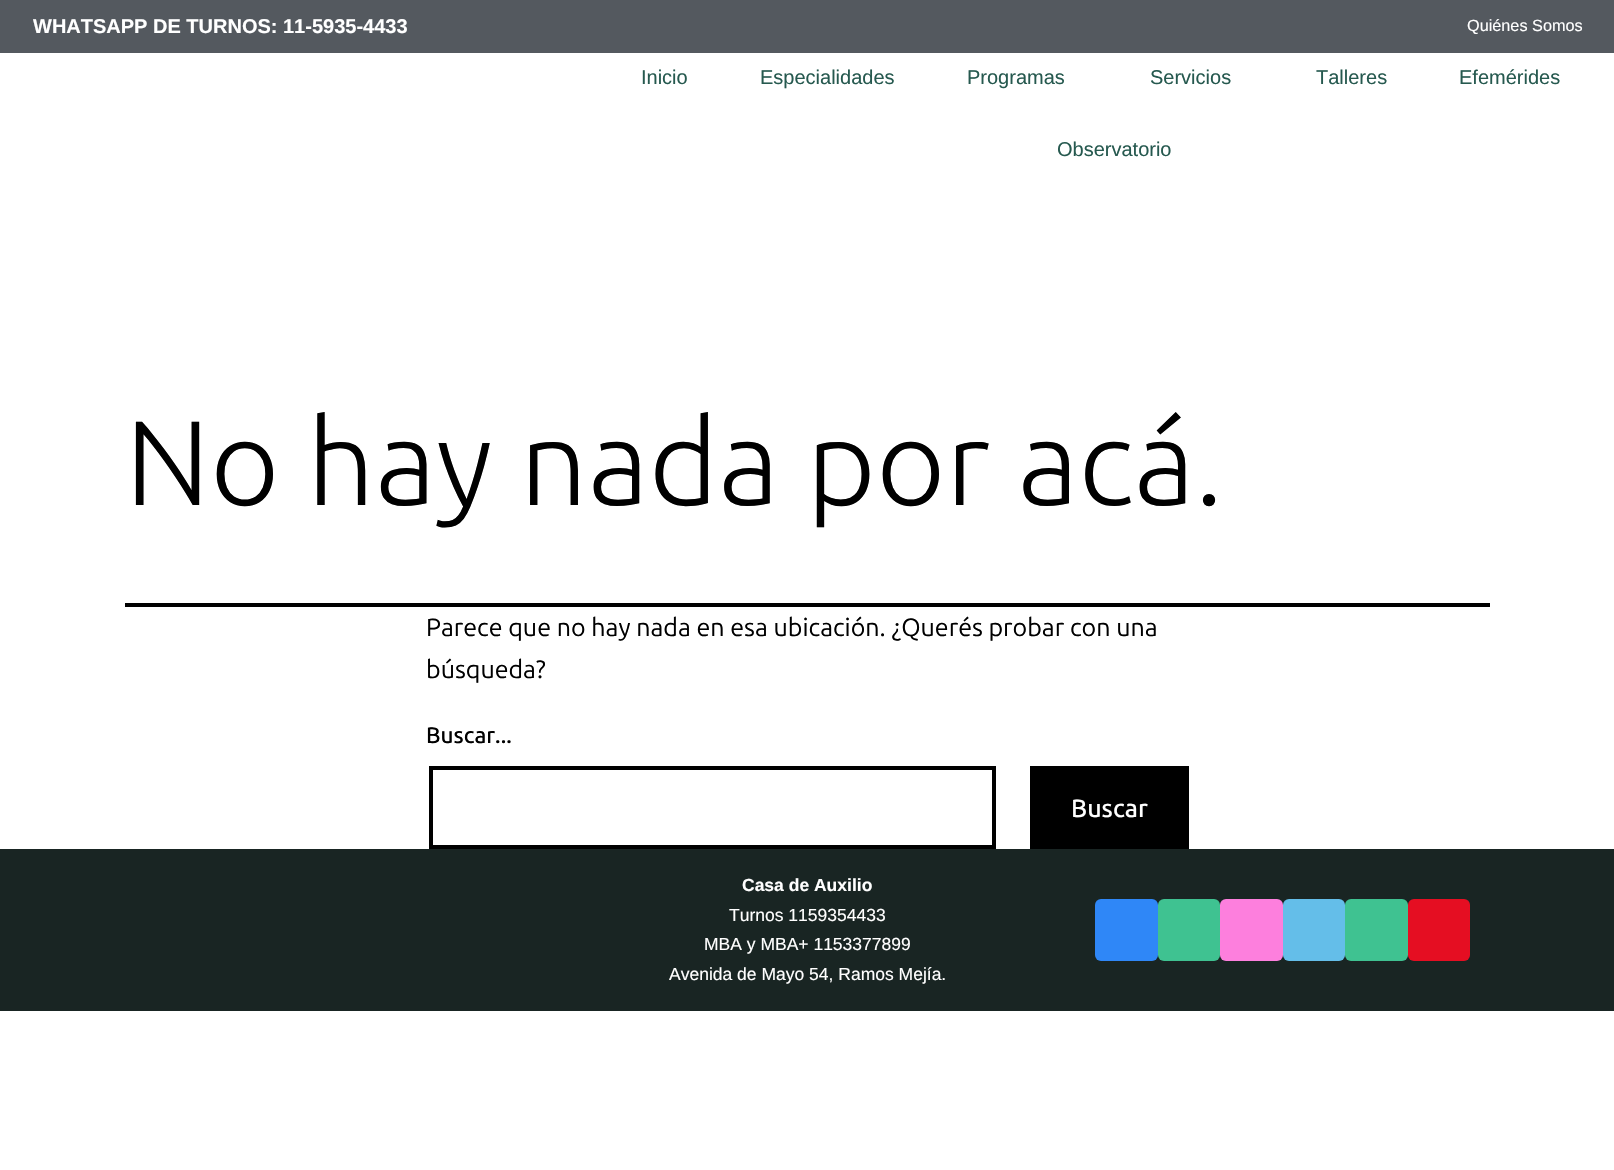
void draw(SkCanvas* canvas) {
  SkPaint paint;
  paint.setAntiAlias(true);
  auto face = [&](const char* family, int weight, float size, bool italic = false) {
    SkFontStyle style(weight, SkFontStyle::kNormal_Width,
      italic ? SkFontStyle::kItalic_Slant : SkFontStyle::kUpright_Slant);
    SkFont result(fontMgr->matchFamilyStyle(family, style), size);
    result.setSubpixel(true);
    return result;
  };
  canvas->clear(0xffffffff);
  paint.setColor(0xff54595f);
  canvas->drawRect(SkRect::MakeXYWH(0, 0, 1614, 53), paint);
  paint.setColor(0xff000000);
  canvas->drawRect(SkRect::MakeXYWH(125, 603, 1365, 4), paint);
  paint.setStroke(true);
  paint.setStrokeWidth(4);
  canvas->drawRect(SkRect::MakeXYWH(431, 768, 563, 79), paint);
  paint.setStroke(false);
  canvas->drawRect(SkRect::MakeXYWH(1030, 766, 159, 83), paint);
  paint.setColor(0xff192523);
  canvas->drawRect(SkRect::MakeXYWH(0, 849, 1614, 162), paint);
  paint.setColor(0xff2f87f7);
  canvas->drawRoundRect(SkRect::MakeXYWH(1095, 899, 63, 62), 6, 6, paint);
  paint.setColor(0xff3fc291);
  canvas->drawRoundRect(SkRect::MakeXYWH(1158, 899, 62, 62), 6, 6, paint);
  paint.setColor(0xfffd7fdd);
  canvas->drawRoundRect(SkRect::MakeXYWH(1220, 899, 63, 62), 6, 6, paint);
  paint.setColor(0xff64bee9);
  canvas->drawRoundRect(SkRect::MakeXYWH(1283, 899, 62, 62), 6, 6, paint);
  paint.setColor(0xff3fc291);
  canvas->drawRoundRect(SkRect::MakeXYWH(1345, 899, 63, 62), 6, 6, paint);
  paint.setColor(0xffe50e22);
  canvas->drawRoundRect(SkRect::MakeXYWH(1408, 899, 62, 62), 6, 6, paint);
  auto f0 = face("Liberation Sans", 700, 20);
  paint.setColor(0xffffffff);
  canvas->drawString("WHATSAPP DE TURNOS: 11-5935-4433", 33, 33, f0, paint);
  auto f1 = face("Liberation Sans", 400, 16.25f);
  canvas->drawString("Quiénes Somos", 1467, 31, f1, paint);
  auto f2 = face("Liberation Sans", 400, 20);
  paint.setColor(0xff26594f);
  {
    const struct { const char* s; float x, y; } items[] = {
      {"Inicio", 641, 84},
      {"Especialidades", 760, 84},
      {"Programas", 967, 84},
      {"Servicios", 1150, 84},
      {"Talleres", 1316, 84},
      {"Efemérides", 1459, 84},
      {"Observatorio", 1057, 156},
    };
    for (auto [s, x, y] : items) {
      canvas->drawString(s, x, y, f2, paint);
    }
  }
  auto f3 = face("Ubuntu", 300, 120);
  paint.setColor(0xff000000);
  canvas->drawString("No hay nada por acá.", 125, 505, f3, paint);
  auto f4 = face("Ubuntu", 400, 25);
  canvas->drawString("Parece que no hay nada en esa ubicación. ¿Querés probar con una", 426, 636, f4, paint);
  canvas->drawString("búsqueda?", 426, 678, f4, paint);
  auto f5 = face("Ubuntu", 500, 22.5f);
  canvas->drawString("Buscar...", 426, 743, f5, paint);
  auto f6 = face("Ubuntu", 500, 25);
  paint.setColor(0xffffffff);
  canvas->drawString("Buscar", 1071, 817, f6, paint);
  auto f7 = face("Liberation Sans", 700, 17.5f);
  canvas->drawString("Casa de Auxilio", 742, 891, f7, paint);
  auto f8 = face("Liberation Sans", 400, 17.5f);
  {
    const struct { const char* s; float x, y; } items[] = {
      {"Turnos 1159354433", 729, 921},
      {"MBA y MBA+ 1153377899", 704, 950},
      {"Avenida de Mayo 54, Ramos Mejía.", 669, 980},
    };
    for (auto [s, x, y] : items) {
      canvas->drawString(s, x, y, f8, paint);
    }
  }
}
